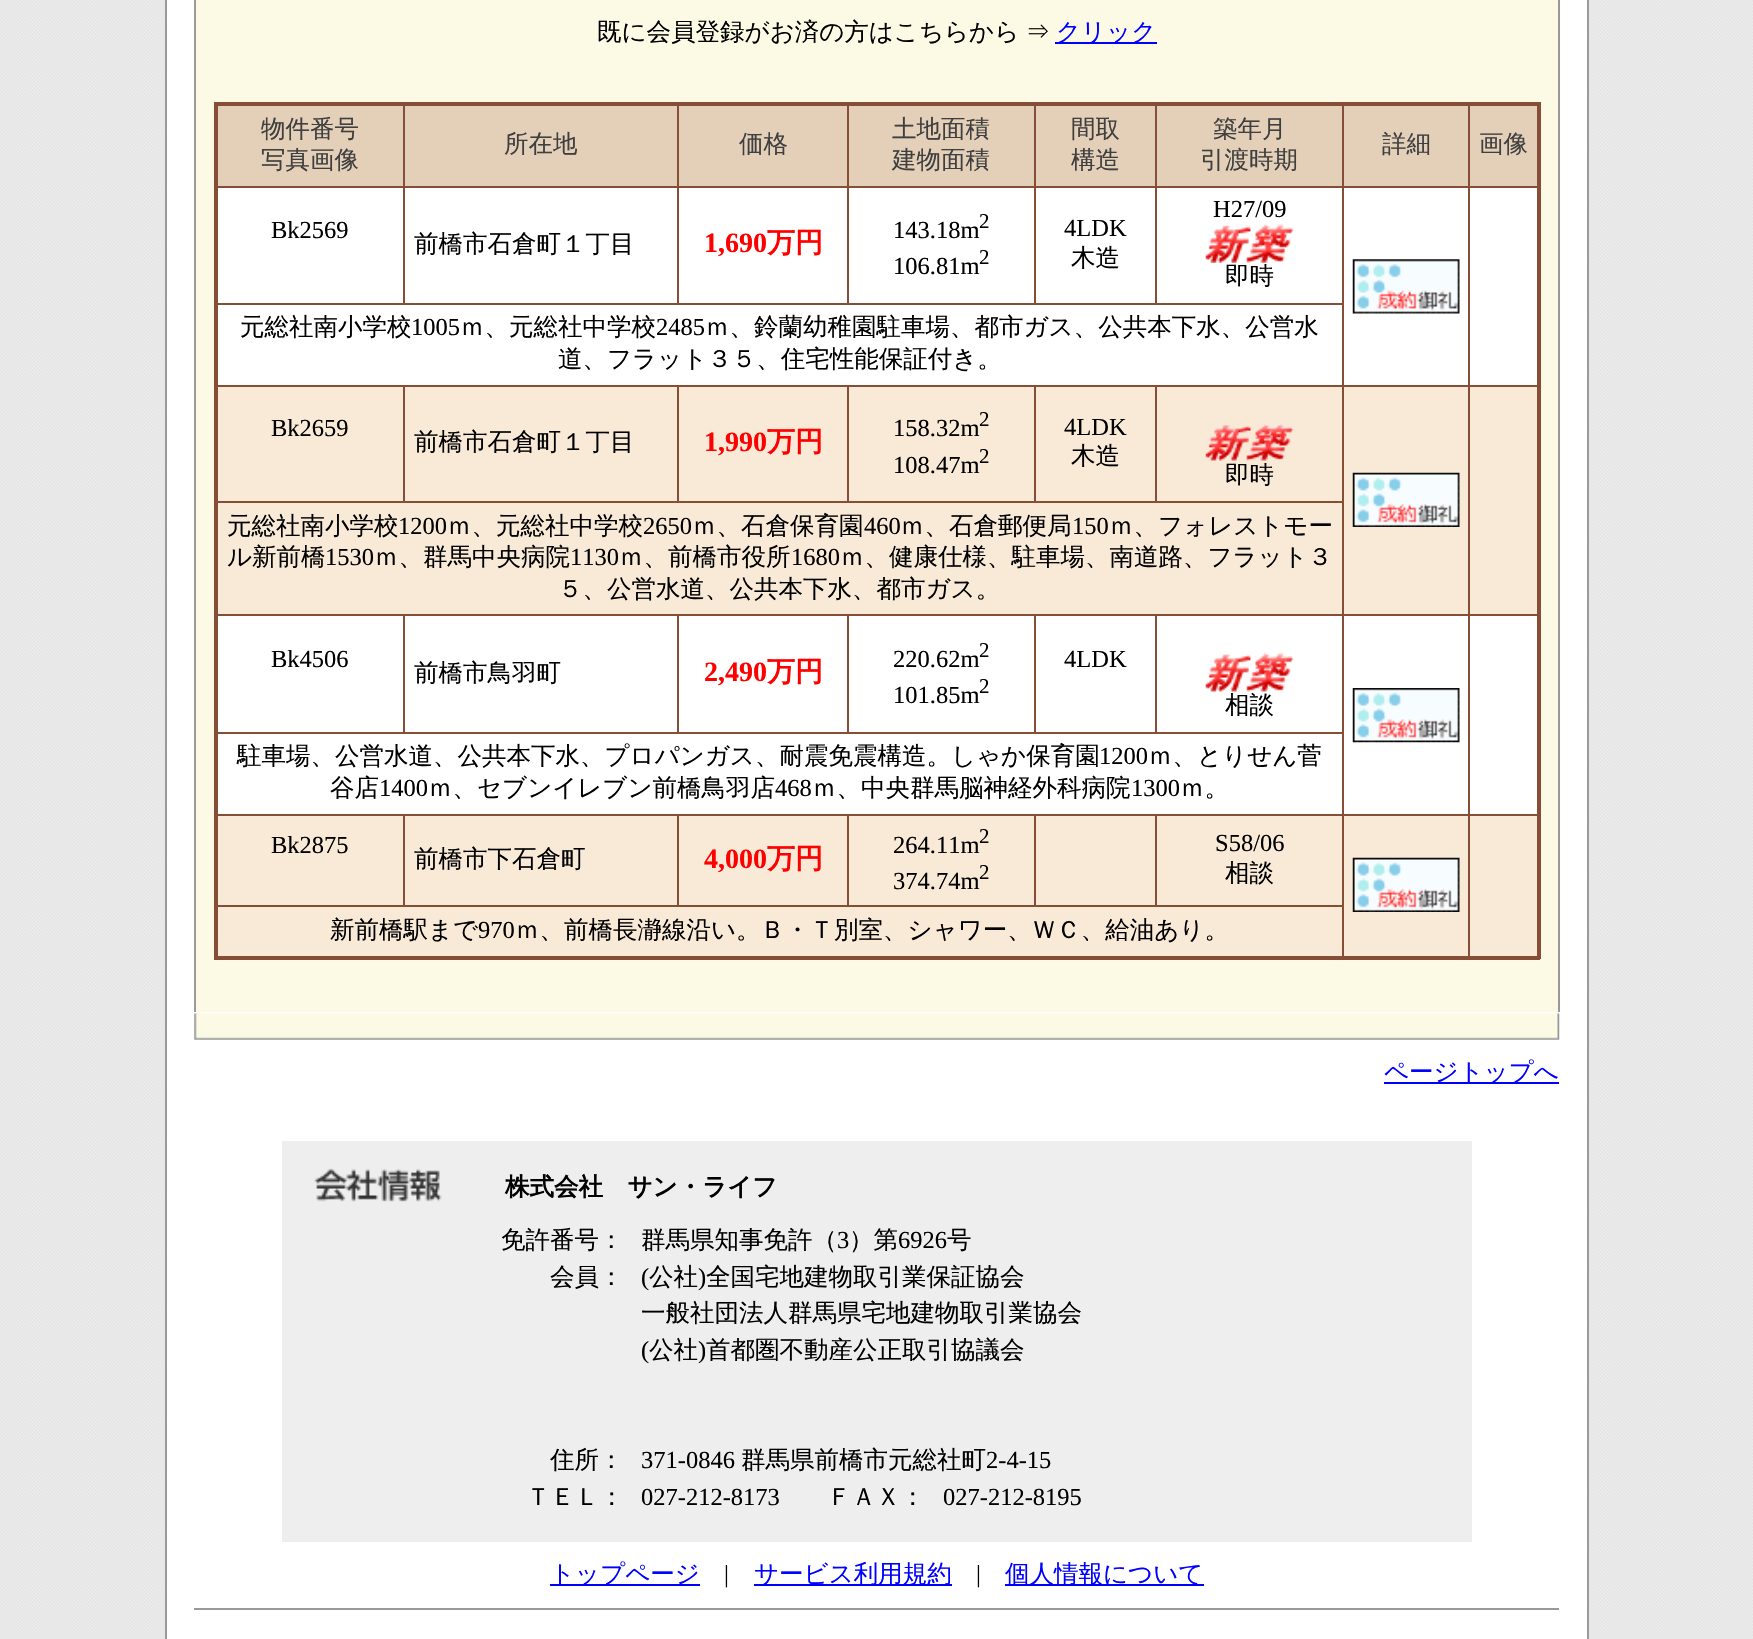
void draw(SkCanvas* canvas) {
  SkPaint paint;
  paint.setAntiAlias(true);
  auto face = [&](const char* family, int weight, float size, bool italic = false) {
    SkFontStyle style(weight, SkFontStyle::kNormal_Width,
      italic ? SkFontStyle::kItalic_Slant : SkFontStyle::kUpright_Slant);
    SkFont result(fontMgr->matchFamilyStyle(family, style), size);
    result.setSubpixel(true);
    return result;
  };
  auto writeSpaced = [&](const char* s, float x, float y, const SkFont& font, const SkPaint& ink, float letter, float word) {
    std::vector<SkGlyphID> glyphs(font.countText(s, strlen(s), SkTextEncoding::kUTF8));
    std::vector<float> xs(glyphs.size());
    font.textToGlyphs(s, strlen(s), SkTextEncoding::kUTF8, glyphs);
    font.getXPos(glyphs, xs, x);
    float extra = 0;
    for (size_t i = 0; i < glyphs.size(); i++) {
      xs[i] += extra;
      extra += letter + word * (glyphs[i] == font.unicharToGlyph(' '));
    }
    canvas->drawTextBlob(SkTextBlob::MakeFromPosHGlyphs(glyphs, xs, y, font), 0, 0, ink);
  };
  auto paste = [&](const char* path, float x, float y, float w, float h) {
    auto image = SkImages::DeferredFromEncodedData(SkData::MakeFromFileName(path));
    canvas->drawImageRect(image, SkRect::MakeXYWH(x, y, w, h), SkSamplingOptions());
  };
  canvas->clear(0xffffffff);
  paste("img/1.png", 0, 0, 1753, 1639);
  paint.setColor(0xffffffff);
  canvas->drawRect(SkRect::MakeXYWH(166, -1, 1422, 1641), paint);
  paint.setStroke(true);
  paint.setStrokeWidth(2);
  paint.setColor(0xff999999);
  canvas->drawRect(SkRect::MakeXYWH(166, -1, 1422, 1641), paint);
  paint.setStroke(false);
  {
    const struct { float x, y, w, h; SkColor color; } items[] = {
      {196, 0, 1362, 1012, 0xfffcfae4},
      {1558, 0, 2, 1012, 0xff999999},
      {194, 0, 2, 1012, 0xff999999},
      {1055, 42, 102, 2, 0xff0000ff},
      {1468, 186, 72, 2, 0xff864d37},
      {1468, 385, 72, 2, 0xff864d37},
      {1468, 614, 72, 2, 0xff864d37},
      {1468, 814, 72, 2, 0xff864d37},
      {1468, 814, 2, 145, 0xff864d37},
      {1342, 814, 128, 2, 0xff864d37},
      {1468, 614, 2, 202, 0xff864d37},
      {1342, 614, 128, 2, 0xff864d37},
      {1468, 385, 2, 231, 0xff864d37},
      {1342, 385, 128, 2, 0xff864d37},
      {1468, 186, 2, 201, 0xff864d37},
      {1342, 186, 128, 2, 0xff864d37},
      {215, 303, 1129, 2, 0xff864d37},
      {215, 501, 1129, 2, 0xff864d37},
      {215, 732, 1129, 2, 0xff864d37},
      {215, 905, 1129, 2, 0xff864d37},
      {1342, 814, 2, 145, 0xff864d37},
      {1155, 814, 189, 2, 0xff864d37},
      {1342, 614, 2, 202, 0xff864d37},
      {1155, 614, 189, 2, 0xff864d37},
      {1342, 385, 2, 231, 0xff864d37},
      {1155, 385, 189, 2, 0xff864d37},
      {1342, 186, 2, 201, 0xff864d37},
      {1155, 186, 189, 2, 0xff864d37},
      {1155, 186, 2, 119, 0xff864d37},
      {1034, 186, 123, 2, 0xff864d37},
      {1034, 186, 2, 119, 0xff864d37},
      {847, 186, 189, 2, 0xff864d37},
      {847, 186, 2, 119, 0xff864d37},
      {677, 186, 172, 2, 0xff864d37},
      {677, 186, 2, 119, 0xff864d37},
      {403, 186, 276, 2, 0xff864d37},
      {403, 186, 2, 119, 0xff864d37},
      {215, 186, 189, 2, 0xff864d37},
      {403, 103, 2, 84, 0xff864d37},
      {677, 103, 2, 84, 0xff864d37},
      {847, 103, 2, 84, 0xff864d37},
      {1034, 103, 2, 84, 0xff864d37},
      {1155, 103, 2, 84, 0xff864d37},
      {1342, 103, 2, 84, 0xff864d37},
      {1468, 103, 2, 84, 0xff864d37},
      {214, 102, 1326, 4, 0xff864d37},
      {1537, 102, 4, 857, 0xff864d37},
      {214, 956, 1326, 4, 0xff864d37},
      {1155, 385, 2, 117, 0xff864d37},
      {1034, 385, 123, 2, 0xff864d37},
      {1034, 385, 2, 117, 0xff864d37},
      {847, 385, 189, 2, 0xff864d37},
      {847, 385, 2, 117, 0xff864d37},
      {677, 385, 172, 2, 0xff864d37},
      {677, 385, 2, 117, 0xff864d37},
      {403, 385, 276, 2, 0xff864d37},
      {403, 385, 2, 117, 0xff864d37},
      {215, 385, 189, 2, 0xff864d37},
      {1155, 614, 2, 119, 0xff864d37},
      {1034, 614, 123, 2, 0xff864d37},
      {1034, 614, 2, 119, 0xff864d37},
      {847, 614, 189, 2, 0xff864d37},
      {847, 614, 2, 119, 0xff864d37},
      {677, 614, 172, 2, 0xff864d37},
      {677, 614, 2, 119, 0xff864d37},
      {403, 614, 276, 2, 0xff864d37},
      {403, 614, 2, 119, 0xff864d37},
      {215, 614, 189, 2, 0xff864d37},
      {1155, 814, 2, 93, 0xff864d37},
      {1034, 814, 123, 2, 0xff864d37},
      {1034, 814, 2, 93, 0xff864d37},
      {847, 814, 189, 2, 0xff864d37},
      {847, 814, 2, 93, 0xff864d37},
      {677, 814, 172, 2, 0xff864d37},
      {677, 814, 2, 93, 0xff864d37},
      {403, 814, 276, 2, 0xff864d37},
      {403, 814, 2, 93, 0xff864d37},
      {215, 814, 189, 2, 0xff864d37},
      {214, 102, 4, 857, 0xff864d37},
      {218, 106, 185, 80, 0xffe4d0b8},
      {405, 106, 272, 80, 0xffe4d0b8},
      {679, 106, 168, 80, 0xffe4d0b8},
      {849, 106, 185, 80, 0xffe4d0b8},
      {1036, 106, 119, 80, 0xffe4d0b8},
      {1157, 106, 185, 80, 0xffe4d0b8},
      {1344, 106, 124, 80, 0xffe4d0b8},
      {1470, 106, 67, 80, 0xffe4d0b8},
      {218, 188, 185, 115, 0xffffffff},
      {405, 188, 272, 115, 0xffffffff},
      {679, 188, 168, 115, 0xffffffff},
      {849, 188, 185, 115, 0xffffffff},
      {1036, 188, 119, 115, 0xffffffff},
      {1157, 188, 185, 115, 0xffffffff},
    };
    for (auto [x, y, w, h, color] : items) {
      paint.setColor(color);
      canvas->drawRect(SkRect::MakeXYWH(x, y, w, h), paint);
    }
  }
  paste("img/2.png", 1205, 224, 89, 39);
  canvas->drawRect(SkRect::MakeXYWH(1344, 188, 124, 197), paint);
  paste("img/3.png", 1352, 259, 108, 55);
  {
    const struct { float x, y, w, h; SkColor color; } items[] = {
      {1470, 188, 67, 197, 0xffffffff},
      {218, 305, 1124, 80, 0xffffffff},
      {218, 387, 185, 114, 0xfff9ead7},
      {405, 387, 272, 114, 0xfff9ead7},
      {679, 387, 168, 114, 0xfff9ead7},
      {849, 387, 185, 114, 0xfff9ead7},
      {1036, 387, 119, 114, 0xfff9ead7},
      {1344, 387, 124, 227, 0xfff9ead7},
    };
    for (auto [x, y, w, h, color] : items) {
      paint.setColor(color);
      canvas->drawRect(SkRect::MakeXYWH(x, y, w, h), paint);
    }
  }
  paste("img/4.png", 1352, 472, 108, 55);
  canvas->drawRect(SkRect::MakeXYWH(1470, 387, 67, 227), paint);
  canvas->drawRect(SkRect::MakeXYWH(1157, 387, 185, 114), paint);
  paste("img/5.png", 1205, 423, 89, 38);
  {
    const struct { float x, y, w, h; SkColor color; } items[] = {
      {218, 503, 1124, 111, 0xfff9ead7},
      {218, 616, 185, 116, 0xffffffff},
      {405, 616, 272, 116, 0xffffffff},
      {679, 616, 168, 116, 0xffffffff},
      {849, 616, 185, 116, 0xffffffff},
      {1036, 616, 119, 116, 0xffffffff},
      {1344, 616, 124, 198, 0xffffffff},
    };
    for (auto [x, y, w, h, color] : items) {
      paint.setColor(color);
      canvas->drawRect(SkRect::MakeXYWH(x, y, w, h), paint);
    }
  }
  paste("img/6.png", 1352, 688, 108, 55);
  canvas->drawRect(SkRect::MakeXYWH(1470, 616, 67, 198), paint);
  canvas->drawRect(SkRect::MakeXYWH(1157, 616, 185, 116), paint);
  paste("img/7.png", 1205, 653, 89, 39);
  {
    const struct { float x, y, w, h; SkColor color; } items[] = {
      {218, 734, 1124, 80, 0xffffffff},
      {218, 816, 185, 89, 0xfff9ead7},
      {405, 816, 272, 89, 0xfff9ead7},
      {679, 816, 168, 89, 0xfff9ead7},
      {849, 816, 185, 89, 0xfff9ead7},
      {1036, 816, 119, 89, 0xfff9ead7},
      {1157, 816, 185, 89, 0xfff9ead7},
      {1344, 816, 124, 140, 0xfff9ead7},
    };
    for (auto [x, y, w, h, color] : items) {
      paint.setColor(color);
      canvas->drawRect(SkRect::MakeXYWH(x, y, w, h), paint);
    }
  }
  paste("img/4.png", 1352, 857, 108, 55);
  canvas->drawRect(SkRect::MakeXYWH(1470, 816, 67, 140), paint);
  canvas->drawRect(SkRect::MakeXYWH(218, 907, 1124, 49), paint);
  paste("img/8.png", 194, 1013, 1366, 27);
  paint.setColor(0xff0000ff);
  canvas->drawRect(SkRect::MakeXYWH(1384, 1082, 175, 2), paint);
  paint.setColor(0xffeeeeee);
  canvas->drawRect(SkRect::MakeXYWH(282, 1141, 1190, 401), paint);
  paste("img/9.png", 314, 1168, 128, 34);
  {
    const struct { float x, y, w, h; SkColor color; } items[] = {
      {550, 1584, 150, 2, 0xff0000ff},
      {754, 1584, 198, 2, 0xff0000ff},
      {1005, 1584, 199, 2, 0xff0000ff},
      {194, 1608, 1365, 2, 0xff999999},
    };
    for (auto [x, y, w, h, color] : items) {
      paint.setColor(color);
      canvas->drawRect(SkRect::MakeXYWH(x, y, w, h), paint);
    }
  }
  auto f0 = face("WenQuanYi Zen Hei", 500, 24.5f);
  paint.setColor(0xff000000);
  writeSpaced("既に会員登録がお済の方はこちらから ⇒", 597, 40, f0, paint, 0, -1);
  paint.setColor(0xff0000ff);
  canvas->drawString("クリック", 1056, 40, f0, paint);
  paint.setColor(0xff3f3f3f);
  {
    const struct { const char* s; float x, y; } items[] = {
      {"物件番号", 261, 137},
      {"写真画像", 261, 168},
      {"所在地", 504, 152},
      {"価格", 739, 152},
      {"土地面積", 892, 137},
      {"建物面積", 892, 168},
      {"間取", 1071, 137},
      {"構造", 1071, 168},
      {"築年月", 1213, 137},
      {"引渡時期", 1200, 168},
      {"詳細", 1382, 152},
      {"画像", 1479, 152},
    };
    for (auto [s, x, y] : items) {
      canvas->drawString(s, x, y, f0, paint);
    }
  }
  auto f1 = face("Liberation Serif", 400, 24.5f);
  paint.setColor(0xff000000);
  canvas->drawString("Bk2569", 271, 238, f1, paint);
  canvas->drawString("前橋市石倉町１丁目", 414, 252, f0, paint);
  auto f2 = face("Liberation Serif", 700, 28);
  paint.setColor(0xffff0000);
  canvas->drawString("1,690", 704, 252, f2, paint);
  auto f3 = face("WenQuanYi Zen Hei", 700, 28);
  canvas->drawString("万円", 767, 252, f3, paint);
  paint.setColor(0xff000000);
  canvas->drawString("143.18m", 893, 238, f1, paint);
  auto f4 = face("Liberation Serif", 400, 21);
  canvas->drawString("2", 979, 228, f4, paint);
  canvas->drawString("106.81m", 893, 274, f1, paint);
  canvas->drawString("2", 979, 264, f4, paint);
  canvas->drawString("4LDK", 1064, 236, f1, paint);
  canvas->drawString("木造", 1071, 266, f0, paint);
  canvas->drawString("H27/09", 1213, 217, f1, paint);
  canvas->drawString("即時", 1225, 284, f0, paint);
  canvas->drawString("元総社南小学校", 240, 335, f0, paint);
  canvas->drawString("1005", 411, 335, f1, paint);
  canvas->drawString("ｍ、元総社中学校", 460, 335, f0, paint);
  canvas->drawString("2485", 656, 335, f1, paint);
  canvas->drawString("ｍ、鈴蘭幼稚園駐車場、都市ガス、公共本下水、公営水", 705, 335, f0, paint);
  canvas->drawString("道、フラット３５、住宅性能保証付き。", 558, 367, f0, paint);
  canvas->drawString("Bk2659", 271, 436, f1, paint);
  canvas->drawString("前橋市石倉町１丁目", 414, 450, f0, paint);
  paint.setColor(0xffff0000);
  canvas->drawString("1,990", 704, 451, f2, paint);
  canvas->drawString("万円", 767, 451, f3, paint);
  paint.setColor(0xff000000);
  canvas->drawString("158.32m", 893, 436, f1, paint);
  canvas->drawString("2", 979, 426, f4, paint);
  canvas->drawString("108.47m", 893, 473, f1, paint);
  canvas->drawString("2", 979, 463, f4, paint);
  canvas->drawString("4LDK", 1064, 435, f1, paint);
  {
    const struct { const char* s; float x, y; } items[] = {
      {"木造", 1071, 464},
      {"即時", 1225, 483},
      {"元総社南小学校", 227, 534},
    };
    for (auto [s, x, y] : items) {
      canvas->drawString(s, x, y, f0, paint);
    }
  }
  canvas->drawString("1200", 398, 534, f1, paint);
  canvas->drawString("ｍ、元総社中学校", 447, 534, f0, paint);
  canvas->drawString("2650", 643, 534, f1, paint);
  canvas->drawString("ｍ、石倉保育園", 692, 534, f0, paint);
  canvas->drawString("460", 864, 534, f1, paint);
  canvas->drawString("ｍ、石倉郵便局", 900, 534, f0, paint);
  canvas->drawString("150", 1072, 534, f1, paint);
  canvas->drawString("ｍ、フォレストモー", 1109, 534, f0, paint);
  canvas->drawString("ル新前橋", 227, 565, f0, paint);
  canvas->drawString("1530", 325, 565, f1, paint);
  canvas->drawString("ｍ、群馬中央病院", 374, 565, f0, paint);
  canvas->drawString("1130", 570, 565, f1, paint);
  canvas->drawString("ｍ、前橋市役所", 619, 565, f0, paint);
  canvas->drawString("1680", 791, 565, f1, paint);
  canvas->drawString("ｍ、健康仕様、駐車場、南道路、フラット３", 840, 565, f0, paint);
  canvas->drawString("５、公営水道、公共本下水、都市ガス。", 558, 597, f0, paint);
  canvas->drawString("Bk4506", 271, 667, f1, paint);
  canvas->drawString("前橋市鳥羽町", 414, 681, f0, paint);
  paint.setColor(0xffff0000);
  canvas->drawString("2,490", 704, 681, f2, paint);
  canvas->drawString("万円", 767, 681, f3, paint);
  paint.setColor(0xff000000);
  canvas->drawString("220.62m", 893, 667, f1, paint);
  canvas->drawString("2", 979, 657, f4, paint);
  canvas->drawString("101.85m", 893, 703, f1, paint);
  canvas->drawString("2", 979, 693, f4, paint);
  canvas->drawString("4LDK", 1064, 667, f1, paint);
  canvas->drawString("相談", 1225, 713, f0, paint);
  canvas->drawString("駐車場、公営水道、公共本下水、プロパンガス、耐震免震構造。しゃか保育園", 237, 764, f0, paint);
  canvas->drawString("1200", 1099, 764, f1, paint);
  canvas->drawString("ｍ、とりせん菅", 1148, 764, f0, paint);
  canvas->drawString("谷店", 330, 796, f0, paint);
  canvas->drawString("1400", 379, 796, f1, paint);
  canvas->drawString("ｍ、セブンイレブン前橋鳥羽店", 428, 796, f0, paint);
  canvas->drawString("468", 775, 796, f1, paint);
  canvas->drawString("ｍ、中央群馬脳神経外科病院", 812, 796, f0, paint);
  canvas->drawString("1300", 1131, 796, f1, paint);
  canvas->drawString("ｍ。", 1180, 796, f0, paint);
  canvas->drawString("Bk2875", 271, 853, f1, paint);
  canvas->drawString("前橋市下石倉町", 414, 867, f0, paint);
  paint.setColor(0xffff0000);
  canvas->drawString("4,000", 704, 868, f2, paint);
  canvas->drawString("万円", 767, 868, f3, paint);
  paint.setColor(0xff000000);
  canvas->drawString("264.11m", 893, 853, f1, paint);
  canvas->drawString("2", 979, 843, f4, paint);
  canvas->drawString("374.74m", 893, 889, f1, paint);
  canvas->drawString("2", 979, 879, f4, paint);
  canvas->drawString("S58/06", 1215, 851, f1, paint);
  canvas->drawString("相談", 1225, 881, f0, paint);
  canvas->drawString("新前橋駅まで", 330, 938, f0, paint);
  canvas->drawString("970", 478, 938, f1, paint);
  canvas->drawString("ｍ、前橋長瀞線沿い。Ｂ・Ｔ別室、シャワー、ＷＣ、給油あり。", 515, 938, f0, paint);
  paint.setColor(0xff0000ff);
  canvas->drawString("ページトップへ", 1384, 1080, f0, paint);
  auto f5 = face("WenQuanYi Zen Hei", 700, 24.5f);
  paint.setColor(0xff000000);
  canvas->drawString("株式会社　サン・ライフ", 505, 1195, f5, paint);
  canvas->drawString("免許番号：", 501, 1248, f0, paint);
  canvas->drawString("群馬県知事免許（", 641, 1248, f0, paint);
  canvas->drawString("3", 837, 1248, f1, paint);
  canvas->drawString("）第", 849, 1248, f0, paint);
  canvas->drawString("6926", 898, 1248, f1, paint);
  canvas->drawString("号", 947, 1248, f0, paint);
  canvas->drawString("会員：", 550, 1285, f0, paint);
  canvas->drawString("(", 641, 1285, f1, paint);
  canvas->drawString("公社", 649, 1285, f0, paint);
  canvas->drawString(")", 698, 1285, f1, paint);
  canvas->drawString("全国宅地建物取引業保証協会", 706, 1285, f0, paint);
  canvas->drawString("一般社団法人群馬県宅地建物取引業協会", 641, 1321, f0, paint);
  canvas->drawString("(", 641, 1358, f1, paint);
  canvas->drawString("公社", 649, 1358, f0, paint);
  canvas->drawString(")", 698, 1358, f1, paint);
  canvas->drawString("首都圏不動産公正取引協議会", 706, 1358, f0, paint);
  canvas->drawString("住所：", 550, 1468, f0, paint);
  canvas->drawString("371-0846", 641, 1468, f1, paint);
  canvas->drawString("群馬県前橋市元総社町", 741, 1468, f0, paint);
  canvas->drawString("2-4-15", 986, 1468, f1, paint);
  canvas->drawString("ＴＥＬ：", 526, 1505, f0, paint);
  canvas->drawString("027-212-8173", 641, 1505, f1, paint);
  canvas->drawString("ＦＡＸ：", 827, 1505, f0, paint);
  canvas->drawString("027-212-8195", 943, 1505, f1, paint);
  paint.setColor(0xff0000ff);
  canvas->drawString("トップページ", 550, 1582, f0, paint);
  paint.setColor(0xff000000);
  canvas->drawString("|", 724, 1582, f1, paint);
  paint.setColor(0xff0000ff);
  canvas->drawString("サービス利用規約", 754, 1582, f0, paint);
  paint.setColor(0xff000000);
  canvas->drawString("|", 976, 1582, f1, paint);
  paint.setColor(0xff0000ff);
  canvas->drawString("個人情報について", 1005, 1582, f0, paint);
}
